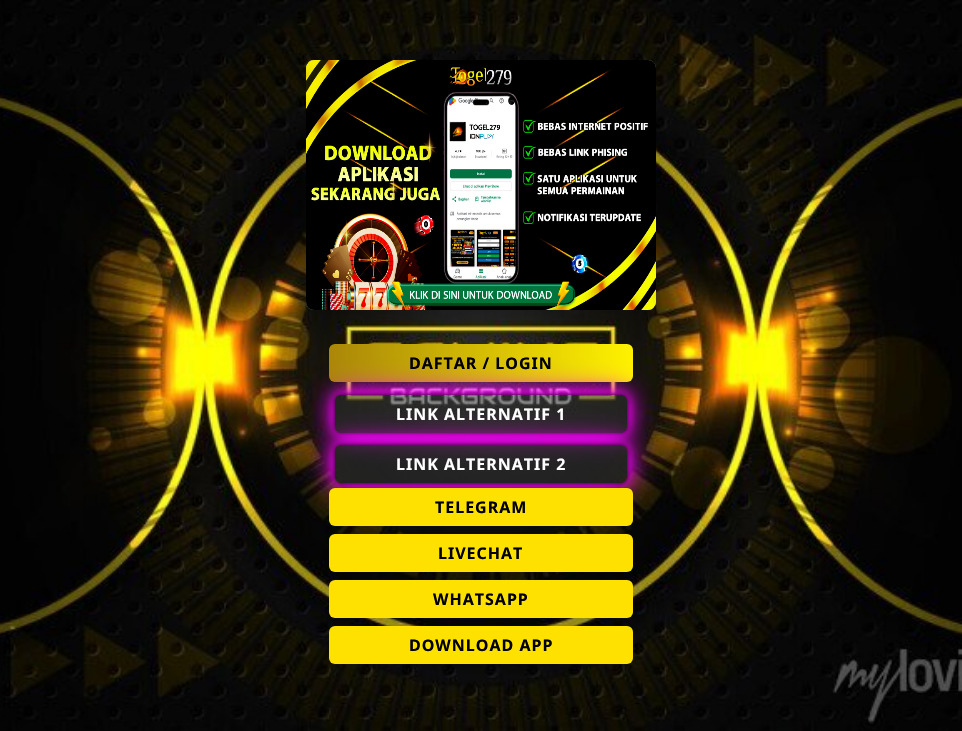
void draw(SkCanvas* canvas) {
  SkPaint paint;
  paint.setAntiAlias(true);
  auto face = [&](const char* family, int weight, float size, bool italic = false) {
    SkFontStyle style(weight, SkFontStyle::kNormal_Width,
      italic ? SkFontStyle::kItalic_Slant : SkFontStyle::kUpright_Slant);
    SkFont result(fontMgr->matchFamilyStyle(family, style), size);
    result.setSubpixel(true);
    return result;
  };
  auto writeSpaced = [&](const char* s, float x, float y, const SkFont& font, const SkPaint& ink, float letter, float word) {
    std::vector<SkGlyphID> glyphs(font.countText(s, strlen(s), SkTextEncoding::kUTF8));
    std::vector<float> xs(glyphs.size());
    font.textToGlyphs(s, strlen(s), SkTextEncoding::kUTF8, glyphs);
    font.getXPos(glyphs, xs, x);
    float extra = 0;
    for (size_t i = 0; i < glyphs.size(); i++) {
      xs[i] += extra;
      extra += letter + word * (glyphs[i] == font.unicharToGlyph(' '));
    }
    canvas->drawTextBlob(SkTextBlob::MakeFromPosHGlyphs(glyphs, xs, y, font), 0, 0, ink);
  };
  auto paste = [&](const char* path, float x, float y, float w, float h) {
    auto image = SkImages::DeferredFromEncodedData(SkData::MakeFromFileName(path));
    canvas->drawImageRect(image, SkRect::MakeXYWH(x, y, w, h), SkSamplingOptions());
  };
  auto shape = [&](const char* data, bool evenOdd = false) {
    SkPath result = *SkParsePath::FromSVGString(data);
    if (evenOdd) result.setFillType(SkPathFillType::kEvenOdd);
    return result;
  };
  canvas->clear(0xffffffff);
  paste("img/1.png", 0, 0, 962, 731);
  paint.setStroke(true);
  paint.setStrokeWidth(8);
  paint.setColor(0xff888888);
  canvas->drawRoundRect(SkRect::MakeXYWH(310, 64, 342, 242), 4, 4, paint);
  paste("img/2.png", 306, 60, 350, 250);
  paint.setStroke(false);
  {
    const SkColor colors[] = {0xffaa8708, 0xfffff200};
    const float stops[] = {0, 1};
    const SkPoint ends[] = {{329, 363}, {633, 363}};
    paint.setShader(SkGradientShader::MakeLinear(ends, colors, stops, 2, SkTileMode::kClamp));
    paint.setAlpha(255);
  }
  canvas->drawRoundRect(SkRect::MakeXYWH(329, 344, 304, 38), 6, 6, paint);
  canvas->save();
  canvas->clipPath(shape("M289 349H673V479H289ZM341 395H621C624.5 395 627 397.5 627 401V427C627 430.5 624.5 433 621 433H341C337.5 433 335 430.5 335 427V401C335 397.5 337.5 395 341 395Z", true), true);
  paint.setShader(nullptr);
  paint.setColor(0xffff00ff);
  paint.setMaskFilter(SkMaskFilter::MakeBlur(kNormal_SkBlurStyle, 15));
  canvas->drawRoundRect(SkRect::MakeXYWH(335, 395, 292, 38), 6, 6, paint);
  paint.setMaskFilter(nullptr);
  canvas->restore();
  canvas->save();
  canvas->clipPath(shape("M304 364H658V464H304ZM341 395H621C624.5 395 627 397.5 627 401V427C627 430.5 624.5 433 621 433H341C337.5 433 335 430.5 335 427V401C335 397.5 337.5 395 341 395Z", true), true);
  paint.setMaskFilter(SkMaskFilter::MakeBlur(kNormal_SkBlurStyle, 10));
  canvas->drawRoundRect(SkRect::MakeXYWH(335, 395, 292, 38), 6, 6, paint);
  paint.setMaskFilter(nullptr);
  canvas->restore();
  canvas->save();
  canvas->clipPath(shape("M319 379H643V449H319ZM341 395H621C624.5 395 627 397.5 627 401V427C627 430.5 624.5 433 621 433H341C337.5 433 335 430.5 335 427V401C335 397.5 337.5 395 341 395Z", true), true);
  paint.setMaskFilter(SkMaskFilter::MakeBlur(kNormal_SkBlurStyle, 5));
  canvas->drawRoundRect(SkRect::MakeXYWH(335, 395, 292, 38), 6, 6, paint);
  paint.setMaskFilter(nullptr);
  canvas->restore();
  canvas->save();
  canvas->clipPath(shape("M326 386H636V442H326ZM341 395H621C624.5 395 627 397.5 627 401V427C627 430.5 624.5 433 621 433H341C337.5 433 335 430.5 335 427V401C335 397.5 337.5 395 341 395Z", true), true);
  paint.setColor(0xff000000);
  paint.setMaskFilter(SkMaskFilter::MakeBlur(kNormal_SkBlurStyle, 2.5f));
  canvas->drawRoundRect(SkRect::MakeXYWH(335, 395, 292, 38), 6, 6, paint);
  paint.setMaskFilter(nullptr);
  canvas->restore();
  paint.setColor(0x87333333);
  canvas->drawRoundRect(SkRect::MakeXYWH(335, 395, 292, 38), 6, 6, paint);
  canvas->save();
  canvas->clipPath(shape("M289 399H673V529H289ZM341 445H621C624.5 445 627 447.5 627 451V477C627 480.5 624.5 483 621 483H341C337.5 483 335 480.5 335 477V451C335 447.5 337.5 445 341 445Z", true), true);
  paint.setColor(0xffff00ff);
  paint.setMaskFilter(SkMaskFilter::MakeBlur(kNormal_SkBlurStyle, 15));
  canvas->drawRoundRect(SkRect::MakeXYWH(335, 445, 292, 38), 6, 6, paint);
  paint.setMaskFilter(nullptr);
  canvas->restore();
  canvas->save();
  canvas->clipPath(shape("M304 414H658V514H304ZM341 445H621C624.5 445 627 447.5 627 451V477C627 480.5 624.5 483 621 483H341C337.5 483 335 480.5 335 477V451C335 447.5 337.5 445 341 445Z", true), true);
  paint.setMaskFilter(SkMaskFilter::MakeBlur(kNormal_SkBlurStyle, 10));
  canvas->drawRoundRect(SkRect::MakeXYWH(335, 445, 292, 38), 6, 6, paint);
  paint.setMaskFilter(nullptr);
  canvas->restore();
  canvas->save();
  canvas->clipPath(shape("M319 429H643V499H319ZM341 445H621C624.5 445 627 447.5 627 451V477C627 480.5 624.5 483 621 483H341C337.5 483 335 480.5 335 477V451C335 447.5 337.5 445 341 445Z", true), true);
  paint.setMaskFilter(SkMaskFilter::MakeBlur(kNormal_SkBlurStyle, 5));
  canvas->drawRoundRect(SkRect::MakeXYWH(335, 445, 292, 38), 6, 6, paint);
  paint.setMaskFilter(nullptr);
  canvas->restore();
  canvas->save();
  canvas->clipPath(shape("M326 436H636V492H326ZM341 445H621C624.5 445 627 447.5 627 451V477C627 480.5 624.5 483 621 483H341C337.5 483 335 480.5 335 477V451C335 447.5 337.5 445 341 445Z", true), true);
  paint.setColor(0xff000000);
  paint.setMaskFilter(SkMaskFilter::MakeBlur(kNormal_SkBlurStyle, 2.5f));
  canvas->drawRoundRect(SkRect::MakeXYWH(335, 445, 292, 38), 6, 6, paint);
  paint.setMaskFilter(nullptr);
  canvas->restore();
  paint.setColor(0x87333333);
  canvas->drawRoundRect(SkRect::MakeXYWH(335, 445, 292, 38), 6, 6, paint);
  paint.setColor(0xffffe100);
  canvas->drawRoundRect(SkRect::MakeXYWH(329, 488, 304, 38), 6, 6, paint);
  canvas->drawRoundRect(SkRect::MakeXYWH(329, 534, 304, 38), 6, 6, paint);
  canvas->drawRoundRect(SkRect::MakeXYWH(329, 580, 304, 38), 6, 6, paint);
  canvas->drawRoundRect(SkRect::MakeXYWH(329, 626, 304, 38), 6, 6, paint);
  auto f0 = face("Noto Sans", 700, 16);
  paint.setColor(0xff000000);
  writeSpaced("DAFTAR / LOGIN", 409, 369, f0, paint, 1, 0);
  paint.setColor(0xffffffff);
  writeSpaced("LINK ALTERNATIF 1", 396, 420, f0, paint, 1, 0);
  writeSpaced("LINK ALTERNATIF 2", 396, 470, f0, paint, 1, 0);
  paint.setColor(0xff000000);
  {
    const struct { const char* s; float x, y; } items[] = {
      {"TELEGRAM", 435, 513},
      {"LIVECHAT", 438, 559},
      {"WHATSAPP", 433, 605},
      {"DOWNLOAD APP", 409, 651},
    };
    for (auto [s, x, y] : items) {
      writeSpaced(s, x, y, f0, paint, 1, 0);
    }
  }
}
